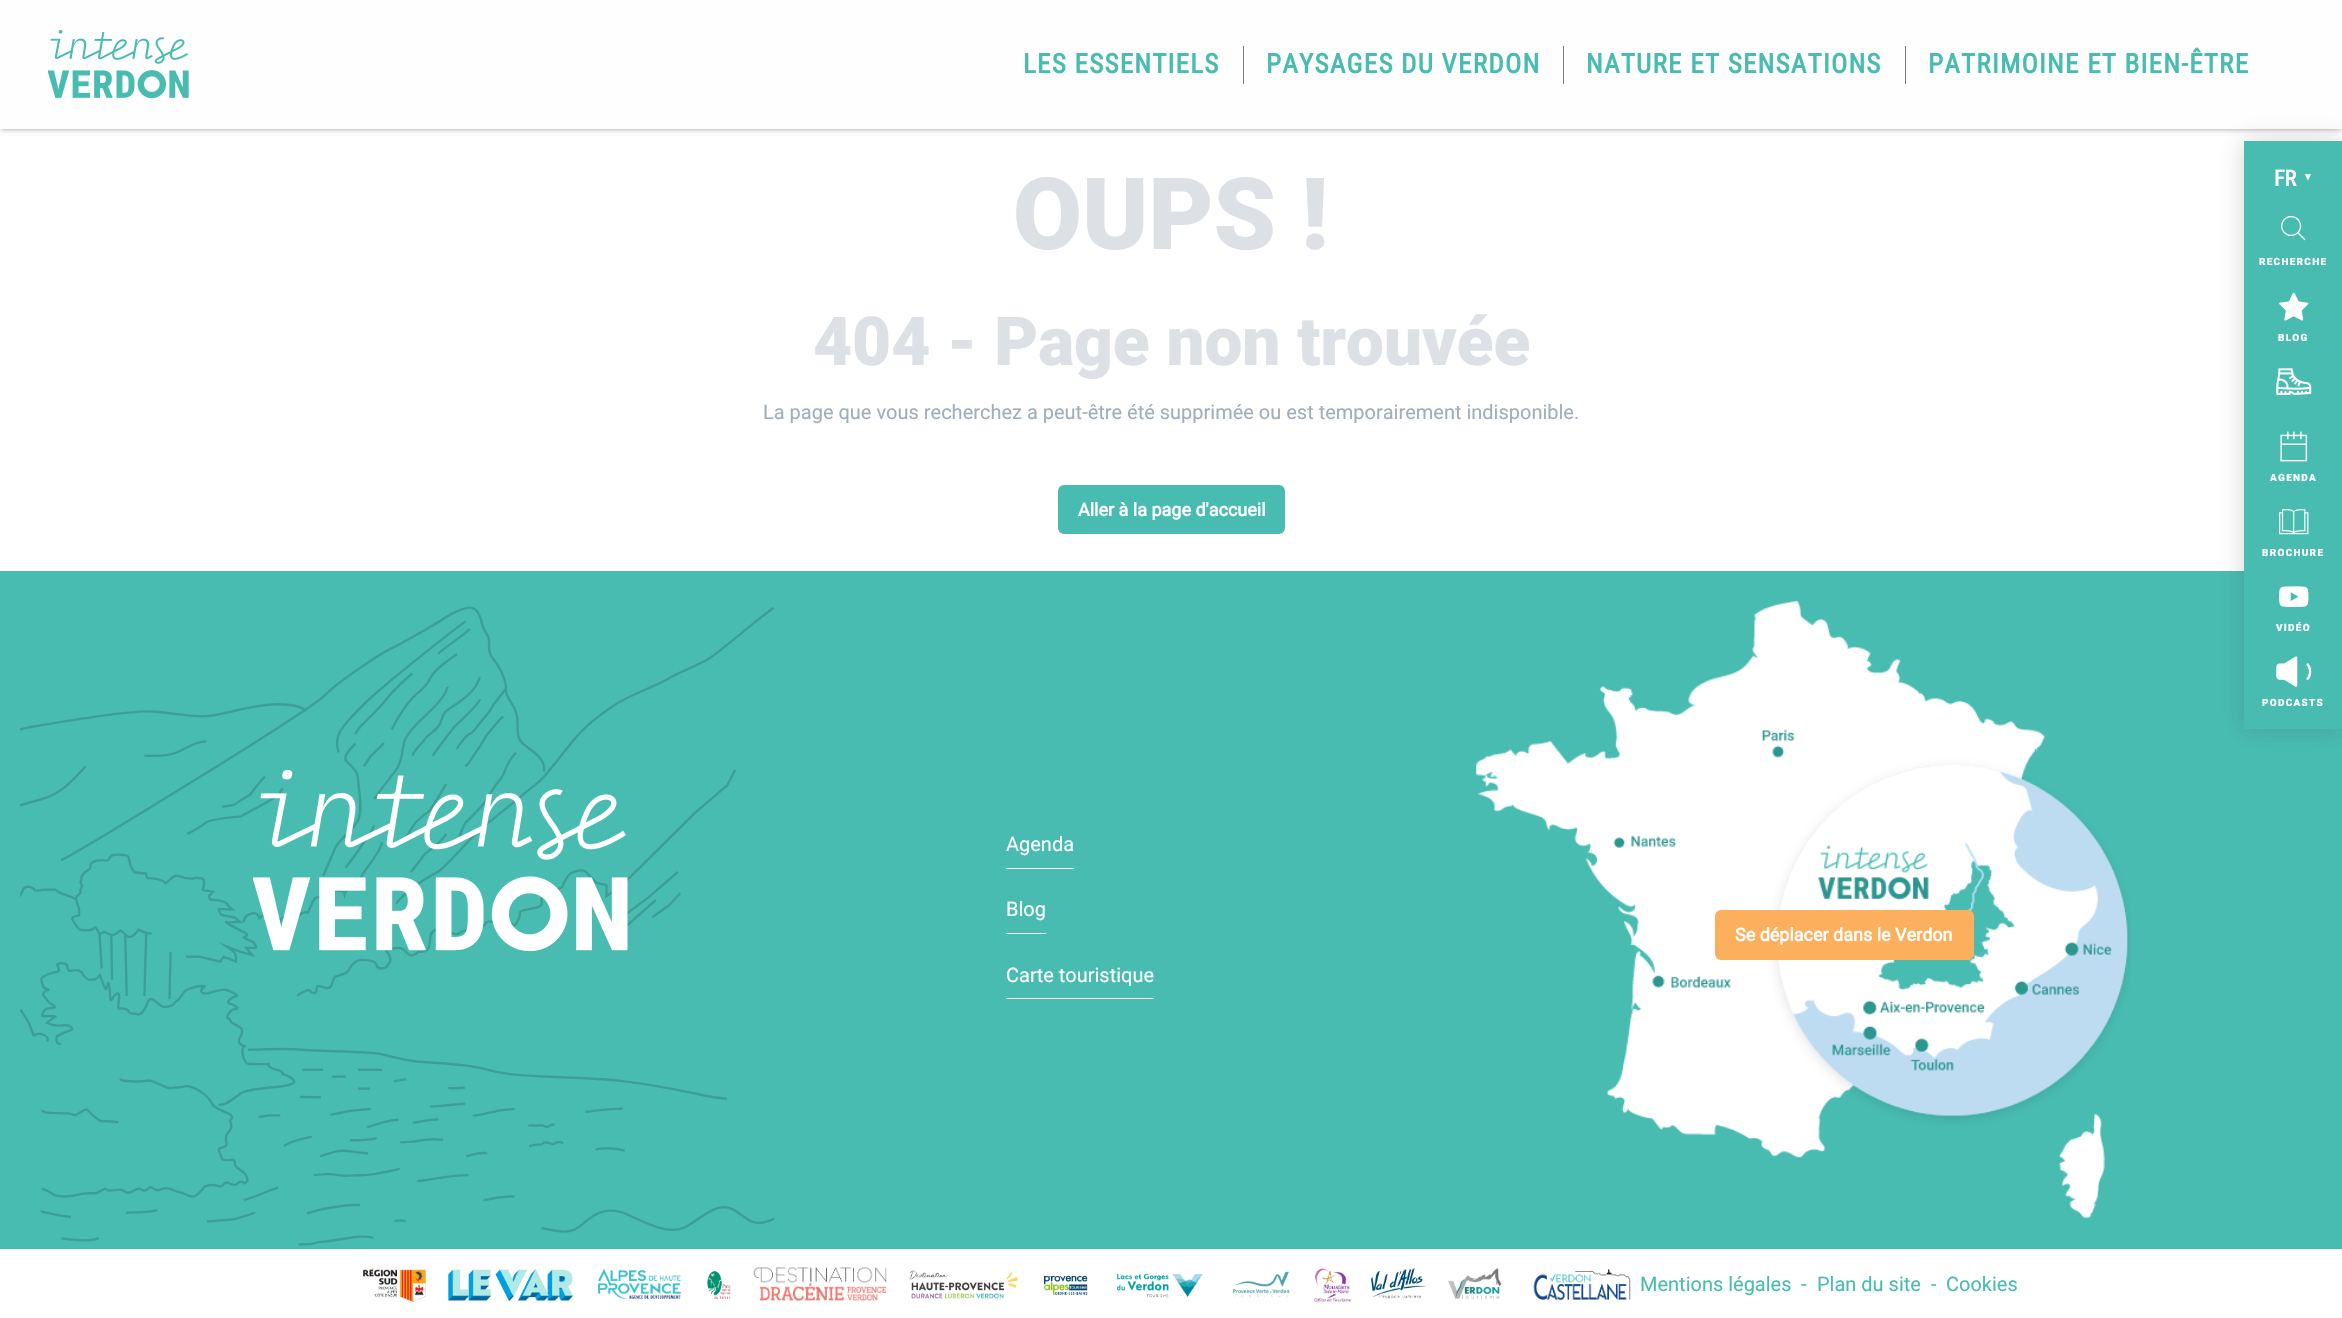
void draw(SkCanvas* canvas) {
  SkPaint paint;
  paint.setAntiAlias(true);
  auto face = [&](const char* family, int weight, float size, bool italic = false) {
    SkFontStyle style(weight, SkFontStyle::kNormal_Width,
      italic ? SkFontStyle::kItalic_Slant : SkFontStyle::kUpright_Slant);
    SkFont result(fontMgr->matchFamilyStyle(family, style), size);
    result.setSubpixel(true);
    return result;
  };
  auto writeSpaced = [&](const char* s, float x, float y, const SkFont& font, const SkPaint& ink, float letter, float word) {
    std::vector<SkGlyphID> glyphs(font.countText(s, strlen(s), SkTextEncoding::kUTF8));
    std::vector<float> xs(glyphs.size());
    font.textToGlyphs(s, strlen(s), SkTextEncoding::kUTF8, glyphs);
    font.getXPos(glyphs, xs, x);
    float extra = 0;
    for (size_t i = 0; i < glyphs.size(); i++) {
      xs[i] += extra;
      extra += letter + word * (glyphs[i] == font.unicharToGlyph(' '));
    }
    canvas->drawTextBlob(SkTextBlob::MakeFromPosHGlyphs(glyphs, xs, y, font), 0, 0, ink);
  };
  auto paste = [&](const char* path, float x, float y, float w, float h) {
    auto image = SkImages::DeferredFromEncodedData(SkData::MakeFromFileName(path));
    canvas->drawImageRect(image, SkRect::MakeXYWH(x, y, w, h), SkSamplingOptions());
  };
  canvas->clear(0xffffffff);
  paint.setColor(0x4d4b4b4b);
  paint.setMaskFilter(SkMaskFilter::MakeBlur(kNormal_SkBlurStyle, 2));
  canvas->drawRect(SkRect::MakeXYWH(1, 3, 2340, 126), paint);
  paint.setMaskFilter(nullptr);
  paint.setColor(0x404b4b4b);
  paint.setMaskFilter(SkMaskFilter::MakeBlur(kNormal_SkBlurStyle, 3));
  canvas->drawRect(SkRect::MakeXYWH(1, 4, 2340, 126), paint);
  paint.setMaskFilter(nullptr);
  paint.setColor(0xfffefefe);
  canvas->drawRect(SkRect::MakeXYWH(0, 0, 2342, 129), paint);
  paste("img/1.png", 48, 30, 141, 69);
  {
    const struct { float x, y, w, h; SkColor color; } items[] = {
      {1243, 46, 1, 38, 0xff7f7f7f},
      {1563, 46, 1, 38, 0xff7f7f7f},
      {1905, 46, 1, 38, 0xff7f7f7f},
    };
    for (auto [x, y, w, h, color] : items) {
      paint.setColor(color);
      canvas->drawRect(SkRect::MakeXYWH(x, y, w, h), paint);
    }
  }
  paint.setColor(0xff48bcb1);
  canvas->drawRoundRect(SkRect::MakeXYWH(1059.5f, 486.5f, 224, 46), 4.5f, 4.5f, paint);
  paint.setStroke(true);
  paint.setStrokeWidth(3);
  canvas->drawRoundRect(SkRect::MakeXYWH(1059.5f, 486.5f, 224, 46), 4.5f, 4.5f, paint);
  paint.setStroke(false);
  canvas->drawRect(SkRect::MakeXYWH(0, 571, 2342, 678), paint);
  paste("img/2.png", 20, 606, 755, 640);
  paste("img/3.png", 253, 770, 375, 181);
  {
    const struct { float x, y, w, h; SkColor color; } items[] = {
      {1006, 868, 68, 1, 0xfffefefe},
      {1006, 933, 40, 1, 0xfffefefe},
      {1006, 998, 148, 1, 0xfffefefe},
    };
    for (auto [x, y, w, h, color] : items) {
      paint.setColor(color);
      canvas->drawRect(SkRect::MakeXYWH(x, y, w, h), paint);
    }
  }
  paste("img/4.png", 1476, 601, 655, 617);
  paint.setColor(0xfffcb05e);
  canvas->drawRoundRect(SkRect::MakeXYWH(1716.5f, 911.5f, 256, 47), 4.5f, 4.5f, paint);
  paint.setStroke(true);
  canvas->drawRoundRect(SkRect::MakeXYWH(1716.5f, 911.5f, 256, 47), 4.5f, 4.5f, paint);
  paste("img/5.png", 363, 1268, 63, 34);
  paste("img/6.png", 448, 1269, 125, 32);
  paste("img/7.png", 598, 1269, 83, 30);
  paste("img/8.png", 707, 1271, 24, 28);
  paste("img/9.png", 753, 1267, 134, 34);
  paste("img/10.png", 908, 1270, 110, 29);
  paste("img/11.png", 1043, 1275, 45, 20);
  paste("img/12.png", 1116, 1273, 87, 25);
  paste("img/13.png", 1233, 1271, 57, 27);
  paste("img/14.png", 1314, 1268, 38, 35);
  paste("img/15.png", 1371, 1268, 55, 31);
  paste("img/16.png", 1448, 1268, 54, 31);
  paste("img/17.png", 1533, 1268, 98, 32);
  paint.setStroke(false);
  paint.setColor(0x33343434);
  paint.setMaskFilter(SkMaskFilter::MakeBlur(kNormal_SkBlurStyle, 12.5f));
  canvas->drawRect(SkRect::MakeXYWH(2244, 141, 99, 588), paint);
  paint.setMaskFilter(nullptr);
  paint.setColor(0xff48bcb1);
  canvas->drawRect(SkRect::MakeXYWH(2244, 141, 98, 588), paint);
  paste("img/18.png", 2281, 216, 25, 25);
  paste("img/19.png", 2279, 292, 30, 29);
  paste("img/20.png", 2276, 368, 36, 27);
  paste("img/21.png", 2280, 431, 28, 31);
  paste("img/22.png", 2279, 509, 30, 26);
  paste("img/23.png", 2279, 586, 30, 22);
  paste("img/24.png", 2276, 656, 36, 31);
  auto f0 = face("Roboto Condensed", 700, 27);
  {
    const struct { const char* s; float x, y; } items[] = {
      {"LES ESSENTIELS", 1023, 73},
      {"PAYSAGES DU VERDON", 1266, 73},
      {"NATURE ET SENSATIONS", 1586, 73},
      {"PATRIMOINE ET BIEN-ÊTRE", 1928, 73},
    };
    for (auto [s, x, y] : items) {
      writeSpaced(s, x, y, f0, paint, 1.25f, 0);
    }
  }
  auto f1 = face("Roboto", 900, 100);
  paint.setColor(0xffdde1e6);
  canvas->drawString("OUPS !", 1013, 249, f1, paint);
  auto f2 = face("Roboto", 900, 67.5f);
  canvas->drawString("404 - Page non trouvée", 813, 365, f2, paint);
  auto f3 = face("Roboto", 400, 20);
  paint.setColor(0xffa2adbb);
  canvas->drawString("La page que vous recherchez a peut-être été supprimée ou est temporairement indisponible.", 763, 419, f3, paint);
  auto f4 = face("Roboto", 700, 18);
  paint.setColor(0xfffefefe);
  canvas->drawString("Aller à la page d'accueil", 1078, 516, f4, paint);
  {
    const struct { const char* s; float x, y; } items[] = {
      {"Agenda", 1006, 851},
      {"Blog", 1006, 916},
      {"Carte touristique", 1006, 982},
    };
    for (auto [s, x, y] : items) {
      canvas->drawString(s, x, y, f3, paint);
    }
  }
  canvas->drawString("Se déplacer dans le Verdon", 1735, 941, f4, paint);
  paint.setColor(0xff48bcb1);
  {
    const struct { const char* s; float x, y; } items[] = {
      {"Mentions légales", 1640, 1291},
      {"-", 1801, 1291},
      {"Plan du site", 1817, 1291},
      {"-", 1931, 1291},
      {"Cookies", 1946, 1291},
    };
    for (auto [s, x, y] : items) {
      canvas->drawString(s, x, y, f3, paint);
    }
  }
  auto f5 = face("Roboto Condensed", 700, 22);
  paint.setColor(0xfffefefe);
  canvas->drawString("FR", 2274, 186, f5, paint);
  auto f6 = face("Liberation Sans", 700, 10);
  canvas->drawString("▼", 2303, 180, f6, paint);
  auto f7 = face("Roboto", 900, 10);
  {
    const struct { const char* s; float x, y; } items[] = {
      {"RECHERCHE", 2259, 265},
      {"BLOG", 2278, 341},
      {"AGENDA", 2270, 481},
      {"BROCHURE", 2262, 556},
      {"VIDÉO", 2276, 631},
      {"PODCASTS", 2262, 706},
    };
    for (auto [s, x, y] : items) {
      writeSpaced(s, x, y, f7, paint, 1.25f, 0);
    }
  }
}
